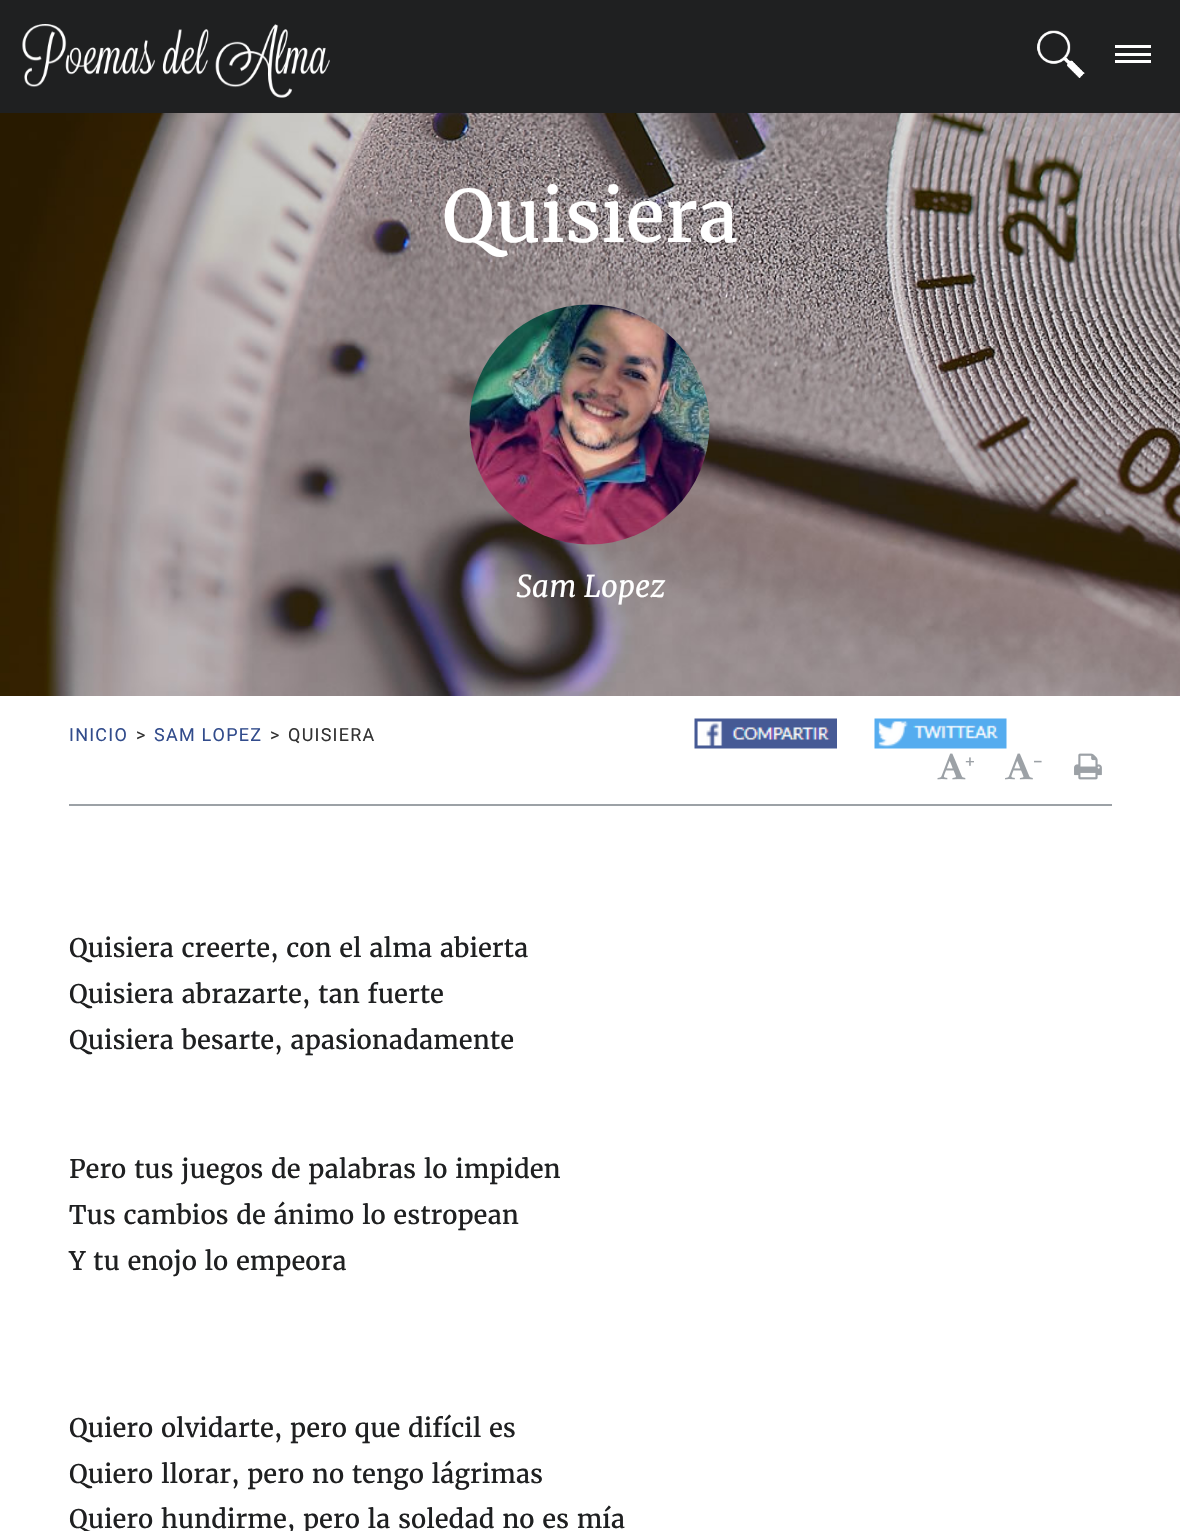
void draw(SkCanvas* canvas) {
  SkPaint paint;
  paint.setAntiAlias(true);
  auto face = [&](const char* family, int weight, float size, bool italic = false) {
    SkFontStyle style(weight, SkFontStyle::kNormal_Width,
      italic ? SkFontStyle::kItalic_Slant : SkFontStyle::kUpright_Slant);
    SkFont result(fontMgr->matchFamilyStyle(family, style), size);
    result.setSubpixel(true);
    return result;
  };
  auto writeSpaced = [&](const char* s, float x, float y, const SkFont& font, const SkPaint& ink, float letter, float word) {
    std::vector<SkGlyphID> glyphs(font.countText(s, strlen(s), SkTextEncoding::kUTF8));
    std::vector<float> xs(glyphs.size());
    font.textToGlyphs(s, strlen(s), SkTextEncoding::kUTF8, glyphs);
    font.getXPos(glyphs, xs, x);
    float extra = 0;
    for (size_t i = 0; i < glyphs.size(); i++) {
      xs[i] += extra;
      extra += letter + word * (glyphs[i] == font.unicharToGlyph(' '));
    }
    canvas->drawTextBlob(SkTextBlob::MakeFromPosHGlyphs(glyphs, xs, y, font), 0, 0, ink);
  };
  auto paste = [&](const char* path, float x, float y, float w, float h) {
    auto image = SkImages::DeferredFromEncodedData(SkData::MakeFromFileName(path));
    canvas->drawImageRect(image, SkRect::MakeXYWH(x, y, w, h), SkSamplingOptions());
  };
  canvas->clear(0xffffffff);
  paint.setColor(0xff1f2021);
  canvas->drawRect(SkRect::MakeXYWH(0, 0, 1180, 113), paint);
  paste("img/1.png", 22, 24, 308, 74);
  paste("img/2.png", 1037, 30, 48, 48);
  {
    const struct { float x, y, w, h; SkColor color; } items[] = {
      {1115, 53, 36, 3, 0xffffffff},
      {1115, 45, 36, 3, 0xffffffff},
      {1115, 60, 36, 3, 0xffffffff},
    };
    for (auto [x, y, w, h, color] : items) {
      paint.setColor(color);
      canvas->drawRect(SkRect::MakeXYWH(x, y, w, h), paint);
    }
  }
  paste("img/3.png", 0, 113, 1180, 583);
  paste("img/4.png", 469, 304, 241, 241);
  paint.setColor(0xff9ca1a6);
  canvas->drawRect(SkRect::MakeXYWH(69, 804, 1043, 2), paint);
  paste("img/5.png", 694, 718, 143, 31);
  paste("img/6.png", 874, 718, 133, 31);
  paste("img/7.png", 937, 753, 29, 27);
  paste("img/8.png", 1005, 753, 28, 27);
  paste("img/9.png", 1074, 753, 28, 27);
  auto f0 = face("Merriweather", 400, 72);
  paint.setColor(0xffffffff);
  canvas->drawString("Quisiera", 442, 242, f0, paint);
  auto f1 = face("Merriweather", 400, 30, true);
  canvas->drawString("Sam Lopez", 516, 597, f1, paint);
  auto f2 = face("Roboto", 400, 18);
  paint.setColor(0xff324c8c);
  writeSpaced("INICIO", 69, 741, f2, paint, 1.25f, 0);
  paint.setColor(0xff333333);
  writeSpaced(">", 136, 741, f2, paint, 1.25f, 0);
  paint.setColor(0xff324c8c);
  writeSpaced("SAM LOPEZ", 154, 741, f2, paint, 1.25f, 0);
  paint.setColor(0xff333333);
  writeSpaced(">", 270, 741, f2, paint, 1.25f, 0);
  writeSpaced("QUISIERA", 288, 741, f2, paint, 1.25f, 0);
  auto f3 = face("Merriweather", 400, 18);
  paint.setColor(0xff9ca1a6);
  canvas->drawString("+", 964, 767, f3, paint);
  canvas->drawString("-", 1032, 767, f3, paint);
  auto f4 = face("Merriweather", 400, 25.5f);
  paint.setColor(0xff1f2021);
  {
    const struct { const char* s; float x, y; } items[] = {
      {"Quisiera creerte, con el alma abierta", 69, 957},
      {"Quisiera abrazarte, tan fuerte", 69, 1003},
      {"Quisiera besarte, apasionadamente", 69, 1049},
      {"Pero tus juegos de palabras lo impiden", 69, 1178},
      {"Tus cambios de ánimo lo estropean", 69, 1224},
      {"Y tu enojo lo empeora", 69, 1270},
      {"Quiero olvidarte, pero que difícil es", 69, 1437},
      {"Quiero llorar, pero no tengo lágrimas", 69, 1483},
      {"Quiero hundirme, pero la soledad no es mía", 69, 1528},
    };
    for (auto [s, x, y] : items) {
      canvas->drawString(s, x, y, f4, paint);
    }
  }
}
